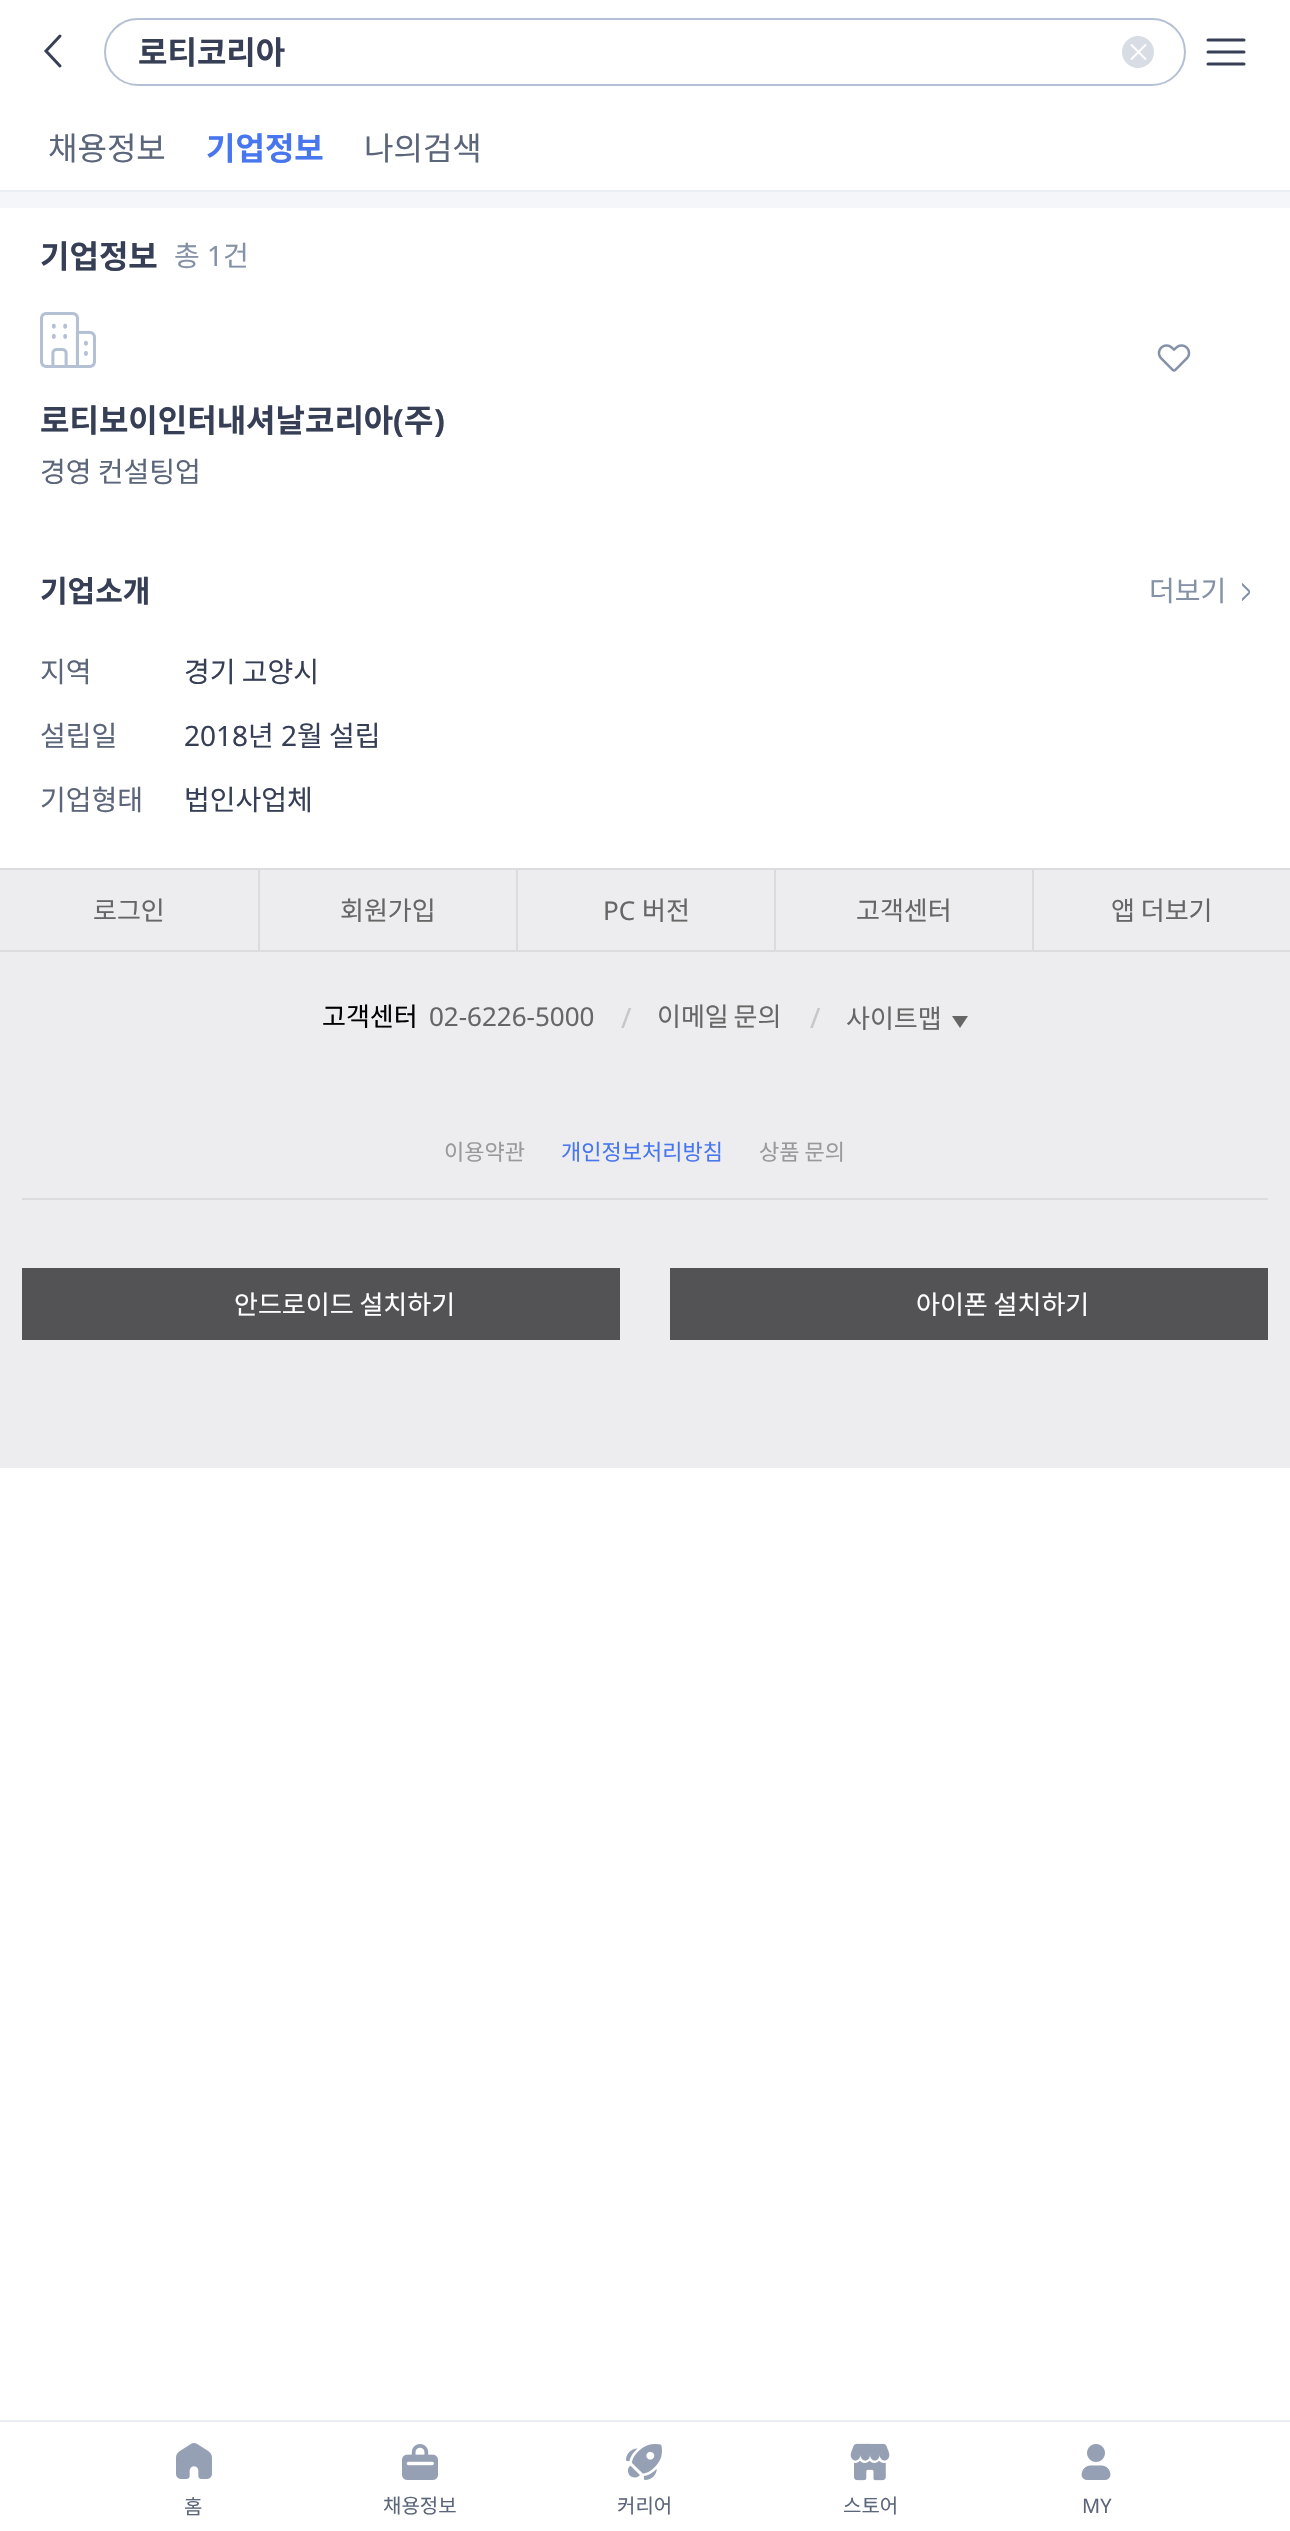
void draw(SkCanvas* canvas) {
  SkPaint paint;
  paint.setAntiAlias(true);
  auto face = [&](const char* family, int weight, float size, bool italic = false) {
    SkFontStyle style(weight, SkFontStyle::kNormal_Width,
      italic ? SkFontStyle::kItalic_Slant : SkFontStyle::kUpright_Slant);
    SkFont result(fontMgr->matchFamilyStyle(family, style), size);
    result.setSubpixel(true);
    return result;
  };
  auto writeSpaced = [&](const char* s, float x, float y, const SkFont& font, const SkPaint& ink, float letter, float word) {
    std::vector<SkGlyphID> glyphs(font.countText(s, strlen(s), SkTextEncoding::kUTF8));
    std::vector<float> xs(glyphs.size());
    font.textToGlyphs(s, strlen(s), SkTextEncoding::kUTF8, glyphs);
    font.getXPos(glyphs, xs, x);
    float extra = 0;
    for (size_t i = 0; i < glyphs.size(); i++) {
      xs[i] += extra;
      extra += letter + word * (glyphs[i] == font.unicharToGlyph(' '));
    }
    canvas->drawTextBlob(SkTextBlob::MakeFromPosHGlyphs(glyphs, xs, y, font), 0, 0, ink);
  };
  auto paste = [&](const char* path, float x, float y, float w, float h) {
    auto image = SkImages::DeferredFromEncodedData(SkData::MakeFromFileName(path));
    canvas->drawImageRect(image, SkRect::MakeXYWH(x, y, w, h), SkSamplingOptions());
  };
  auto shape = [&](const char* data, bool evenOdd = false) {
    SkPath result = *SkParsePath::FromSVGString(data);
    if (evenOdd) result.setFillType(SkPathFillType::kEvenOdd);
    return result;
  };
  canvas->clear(0xffffffff);
  paint.setStroke(true);
  paint.setStrokeWidth(3);
  paint.setStrokeCap(SkPaint::kRound_Cap);
  paint.setColor(0xff373f57);
  canvas->drawPath(shape("M60 36L46 51L60 66"), paint);
  paint.setStrokeWidth(2);
  paint.setStrokeCap(SkPaint::kButt_Cap);
  paint.setColor(0xffb4c0d3);
  canvas->drawRoundRect(SkRect::MakeXYWH(105, 19, 1080, 66), 33, 33, paint);
  paint.setStroke(false);
  paint.setColor(0xffd7dce5);
  canvas->drawCircle(1138, 52, 16, paint);
  paint.setStroke(true);
  paint.setStrokeCap(SkPaint::kRound_Cap);
  paint.setColor(0xffffffff);
  canvas->drawPath(shape("M1145.5 45L1131.5 59M1131.5 45L1145.5 59"), paint);
  paint.setStrokeWidth(3);
  paint.setStrokeJoin(SkPaint::kRound_Join);
  paint.setColor(0xff373f57);
  canvas->drawPath(shape("M1208 52H1244M1208 40H1244M1208 64H1244"), paint);
  paint.setStroke(false);
  paint.setColor(0xffeaedf4);
  canvas->drawRect(SkRect::MakeXYWH(0, 190, 1290, 2), paint);
  paint.setColor(0xfff4f6fa);
  canvas->drawRect(SkRect::MakeXYWH(0, 192, 1290, 16), paint);
  paste("img/1.png", 1157, 344, 34, 28);
  paste("img/2.png", 40, 312, 56, 56);
  canvas->save();
  canvas->clipRect(SkRect::MakeXYWH(1242, 582, 8, 20));
  paint.setStroke(true);
  paint.setStrokeWidth(2);
  paint.setColor(0xff8491a7);
  canvas->drawPath(shape("M1242 600L1250 592L1242 584"), paint);
  canvas->restore();
  paint.setStroke(false);
  {
    const struct { float x, y, w, h; SkColor color; } items[] = {
      {0, 870, 1290, 598, 0xffededef},
      {0, 868, 1290, 2, 0xffdcdcde},
      {0, 950, 1290, 2, 0xffdcdcde},
      {258, 870, 2, 80, 0xffdcdcde},
      {516, 870, 2, 80, 0xffdcdcde},
      {774, 870, 2, 80, 0xffdcdcde},
      {1032, 870, 2, 80, 0xffdcdcde},
    };
    for (auto [x, y, w, h, color] : items) {
      paint.setColor(color);
      canvas->drawRect(SkRect::MakeXYWH(x, y, w, h), paint);
    }
  }
  paint.setColor(0xff666666);
  canvas->drawPath(shape("M952 1016H968L960 1028Z"), paint);
  {
    const struct { float x, y, w, h; SkColor color; } items[] = {
      {22, 1198, 1246, 2, 0xffdcdcde},
      {22, 1268, 598, 72, 0xff535355},
      {670, 1268, 598, 72, 0xff535355},
      {0, 2420, 1290, 2, 0xffeaedf4},
    };
    for (auto [x, y, w, h, color] : items) {
      paint.setColor(color);
      canvas->drawRect(SkRect::MakeXYWH(x, y, w, h), paint);
    }
  }
  paste("img/3.png", 176, 2443, 36, 36);
  paste("img/4.png", 402, 2444, 36, 36);
  paste("img/5.png", 626, 2444, 36, 36);
  paste("img/6.png", 850, 2443, 40, 38);
  paste("img/7.png", 1081, 2444, 30, 36);
  auto f0 = face("Noto Sans KR", 700, 32);
  paint.setColor(0xff373f57);
  canvas->drawString("로티코리아", 138, 64, f0, paint);
  auto f1 = face("Noto Sans KR", 400, 32);
  paint.setColor(0xff5c667b);
  canvas->drawString("채용정보", 48, 160, f1, paint);
  paint.setColor(0xff4876ef);
  canvas->drawString("기업정보", 206, 160, f0, paint);
  paint.setColor(0xff5c667b);
  canvas->drawString("나의검색", 364, 160, f1, paint);
  paint.setColor(0xff373f57);
  canvas->drawString("기업정보", 40, 268, f0, paint);
  auto f2 = face("Noto Sans KR", 400, 28);
  paint.setColor(0xff8491a7);
  canvas->drawString("총", 174, 266, f2, paint);
  auto f3 = face("Noto Sans", 400, 28);
  canvas->drawString("1", 207, 266, f3, paint);
  canvas->drawString("건", 223, 266, f2, paint);
  paint.setColor(0xff373f57);
  canvas->drawString("로티보이인터내셔날코리아", 40, 432, f0, paint);
  auto f4 = face("Noto Sans", 700, 32);
  canvas->drawString("(", 393, 432, f4, paint);
  canvas->drawString("주", 404, 432, f0, paint);
  canvas->drawString(")", 434, 432, f4, paint);
  paint.setColor(0xff5c667b);
  canvas->drawString("경영 컨설팅업", 40, 482, f2, paint);
  auto f5 = face("Noto Sans KR", 700, 30);
  paint.setColor(0xff373f57);
  canvas->drawString("기업소개", 40, 602, f5, paint);
  paint.setColor(0xff8491a7);
  canvas->drawString("더보기", 1149, 601, f2, paint);
  paint.setColor(0xff5c667b);
  canvas->drawString("지역", 40, 682, f2, paint);
  paint.setColor(0xff373f57);
  canvas->drawString("경기 고양시", 184, 682, f2, paint);
  paint.setColor(0xff5c667b);
  canvas->drawString("설립일", 40, 746, f2, paint);
  paint.setColor(0xff373f57);
  canvas->drawString("2018", 184, 746, f3, paint);
  canvas->drawString("년", 248, 746, f2, paint);
  canvas->drawString("2", 281, 746, f3, paint);
  canvas->drawString("월 설립", 297, 746, f2, paint);
  paint.setColor(0xff5c667b);
  canvas->drawString("기업형태", 40, 810, f2, paint);
  paint.setColor(0xff373f57);
  canvas->drawString("법인사업체", 184, 810, f2, paint);
  auto f6 = face("Noto Sans KR", 400, 26);
  paint.setColor(0xff666666);
  canvas->drawString("로그인", 93, 920, f6, paint);
  canvas->drawString("회원가입", 340, 920, f6, paint);
  auto f7 = face("Noto Sans", 400, 26);
  canvas->drawString("PC", 603, 920, f7, paint);
  {
    const struct { const char* s; float x, y; } items[] = {
      {"버전", 642, 920},
      {"고객센터", 856, 920},
      {"앱 더보기", 1111, 920},
    };
    for (auto [s, x, y] : items) {
      canvas->drawString(s, x, y, f6, paint);
    }
  }
  paint.setColor(0xff000000);
  canvas->drawString("고객센터", 322, 1026, f6, paint);
  paint.setColor(0xff666666);
  canvas->drawString("02-6226-5000", 429, 1026, f7, paint);
  paint.setColor(0xffc7c7c8);
  canvas->drawString("/", 621, 1028, f3, paint);
  paint.setColor(0xff666666);
  writeSpaced("이메일 문의", 657, 1026, f6, paint, 0, -1);
  paint.setColor(0xffc7c7c8);
  canvas->drawString("/", 810, 1028, f3, paint);
  paint.setColor(0xff666666);
  canvas->drawString("사이트맵", 846, 1028, f6, paint);
  auto f8 = face("Noto Sans KR", 400, 22);
  paint.setColor(0xff999999);
  canvas->drawString("이용약관", 444, 1160, f8, paint);
  paint.setColor(0xff4876ef);
  canvas->drawString("개인정보처리방침", 561, 1160, f8, paint);
  paint.setColor(0xff999999);
  canvas->drawString("상품 문의", 759, 1160, f8, paint);
  paint.setColor(0xffffffff);
  canvas->drawString("안드로이드 설치하기", 234, 1314, f6, paint);
  canvas->drawString("아이폰 설치하기", 916, 1314, f6, paint);
  auto f9 = face("Noto Sans KR", 400, 20);
  paint.setColor(0xff5c667b);
  {
    const struct { const char* s; float x, y; } items[] = {
      {"홈", 184, 2514},
      {"채용정보", 383, 2513},
      {"커리어", 617, 2513},
      {"스토어", 843, 2513},
    };
    for (auto [s, x, y] : items) {
      canvas->drawString(s, x, y, f9, paint);
    }
  }
  auto f10 = face("Noto Sans", 400, 20);
  canvas->drawString("MY", 1082, 2513, f10, paint);
}
